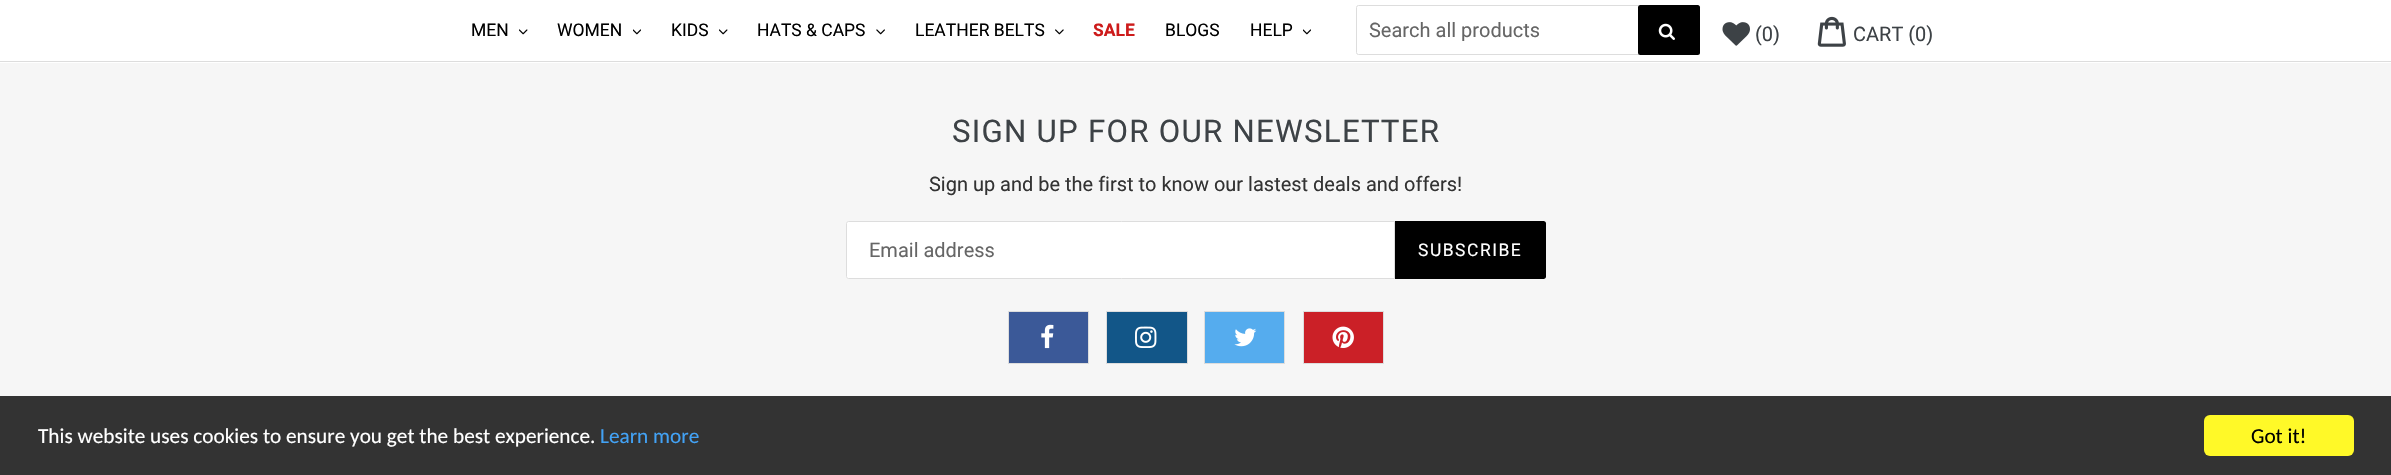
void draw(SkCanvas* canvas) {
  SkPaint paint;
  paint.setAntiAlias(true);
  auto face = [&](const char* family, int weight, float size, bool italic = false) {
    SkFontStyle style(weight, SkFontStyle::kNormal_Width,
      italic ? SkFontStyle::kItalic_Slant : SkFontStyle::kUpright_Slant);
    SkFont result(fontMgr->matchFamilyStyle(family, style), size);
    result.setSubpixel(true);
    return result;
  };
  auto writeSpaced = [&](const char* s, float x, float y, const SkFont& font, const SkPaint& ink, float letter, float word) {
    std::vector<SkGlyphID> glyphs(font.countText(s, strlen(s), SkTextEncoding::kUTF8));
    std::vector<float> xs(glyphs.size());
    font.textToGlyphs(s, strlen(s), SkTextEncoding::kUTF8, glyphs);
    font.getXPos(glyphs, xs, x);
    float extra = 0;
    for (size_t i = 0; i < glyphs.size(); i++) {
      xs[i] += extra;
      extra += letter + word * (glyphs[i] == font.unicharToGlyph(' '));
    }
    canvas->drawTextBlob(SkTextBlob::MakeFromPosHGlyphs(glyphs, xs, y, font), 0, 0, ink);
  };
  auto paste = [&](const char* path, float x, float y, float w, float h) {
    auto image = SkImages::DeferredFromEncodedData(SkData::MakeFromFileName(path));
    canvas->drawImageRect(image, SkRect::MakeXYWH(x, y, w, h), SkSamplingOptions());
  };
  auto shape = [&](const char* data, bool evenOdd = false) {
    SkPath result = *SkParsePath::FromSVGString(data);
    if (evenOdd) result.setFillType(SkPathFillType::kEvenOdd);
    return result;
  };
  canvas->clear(0xfff6f6f6);
  paint.setColor(0xffffffff);
  canvas->drawRect(SkRect::MakeXYWH(0, 0, 2391, 63), paint);
  paint.setColor(0xffdddddd);
  canvas->drawRect(SkRect::MakeXYWH(0, 61, 2391, 1), paint);
  paste("img/1.png", 519, 29, 9, 6);
  paste("img/2.png", 633, 29, 8, 6);
  paste("img/1.png", 719, 29, 9, 6);
  paste("img/3.png", 876, 29, 9, 6);
  paste("img/4.png", 1055, 29, 9, 6);
  paste("img/2.png", 1303, 29, 8, 6);
  paint.setStroke(true);
  paint.setStrokeWidth(1);
  canvas->drawRoundRect(SkRect::MakeXYWH(1356.5f, 5.5f, 343, 49), 2, 2, paint);
  paint.setStroke(false);
  paint.setColor(0xff000000);
  canvas->drawRoundRect(SkRect::MakeXYWH(1638, 5, 62, 50), 2.5f, 2.5f, paint);
  paste("img/5.png", 1658, 23, 17, 17);
  paste("img/6.png", 1722, 22, 28, 24);
  paste("img/7.png", 1817, 16, 29, 31);
  paint.setColor(0xffffffff);
  canvas->drawPath(shape("M848.5 221.5H1394.5V278.5H848.5C847.5 278.5 846.5 277.5 846.5 276.5V223.5C846.5 222.5 847.5 221.5 848.5 221.5Z"), paint);
  paint.setStroke(true);
  paint.setColor(0xffdddddd);
  canvas->drawPath(shape("M848.5 221.5H1394.5V278.5H848.5C847.5 278.5 846.5 277.5 846.5 276.5V223.5C846.5 222.5 847.5 221.5 848.5 221.5Z"), paint);
  paint.setStroke(false);
  paint.setColor(0xff000000);
  canvas->drawPath(shape("M1395 221H1543.5C1545 221 1546 222 1546 223.5V276.5C1546 278 1545 279 1543.5 279H1395Z"), paint);
  paint.setColor(0xff3b5998);
  canvas->drawRect(SkRect::MakeXYWH(1008.5f, 311.5f, 80, 52), paint);
  paint.setStroke(true);
  paint.setColor(0xffdddddd);
  canvas->drawRect(SkRect::MakeXYWH(1008.5f, 311.5f, 80, 52), paint);
  paste("img/8.png", 1041, 324, 13, 25);
  paint.setStroke(false);
  paint.setColor(0xff125688);
  canvas->drawRect(SkRect::MakeXYWH(1106.5f, 311.5f, 81, 52), paint);
  paint.setStroke(true);
  paint.setColor(0xffdddddd);
  canvas->drawRect(SkRect::MakeXYWH(1106.5f, 311.5f, 81, 52), paint);
  paste("img/9.png", 1135, 326, 22, 22);
  paint.setStroke(false);
  paint.setColor(0xff55acee);
  canvas->drawRect(SkRect::MakeXYWH(1204.5f, 311.5f, 80, 52), paint);
  paint.setStroke(true);
  paint.setColor(0xffdddddd);
  canvas->drawRect(SkRect::MakeXYWH(1204.5f, 311.5f, 80, 52), paint);
  paste("img/10.png", 1234, 328, 23, 19);
  paint.setStroke(false);
  paint.setColor(0xffcb2027);
  canvas->drawRect(SkRect::MakeXYWH(1303.5f, 311.5f, 80, 52), paint);
  paint.setStroke(true);
  paint.setColor(0xffdddddd);
  canvas->drawRect(SkRect::MakeXYWH(1303.5f, 311.5f, 80, 52), paint);
  paste("img/11.png", 1332, 326, 22, 22);
  paint.setStroke(false);
  paint.setColor(0xff333333);
  canvas->drawRect(SkRect::MakeXYWH(0, 396, 2391, 79), paint);
  paint.setColor(0xfffff928);
  canvas->drawRoundRect(SkRect::MakeXYWH(2204, 415, 150, 41), 6, 6, paint);
  auto f0 = face("Roboto", 400, 17.5f);
  paint.setColor(0xff000000);
  {
    const struct { const char* s; float x, y; } items[] = {
      {"MEN", 471, 36},
      {"WOMEN", 557, 36},
      {"KIDS", 671, 36},
      {"HATS & CAPS", 757, 36},
      {"LEATHER BELTS", 915, 36},
    };
    for (auto [s, x, y] : items) {
      canvas->drawString(s, x, y, f0, paint);
    }
  }
  auto f1 = face("Roboto", 700, 17.5f);
  paint.setColor(0xffcd1b1b);
  canvas->drawString("SALE", 1093, 36, f1, paint);
  paint.setColor(0xff000000);
  canvas->drawString("BLOGS", 1165, 36, f0, paint);
  canvas->drawString("HELP", 1250, 36, f0, paint);
  auto f2 = face("Roboto", 400, 20);
  paint.setColor(0xff666666);
  canvas->drawString("Search all products", 1369, 37, f2, paint);
  paint.setColor(0xff3d4246);
  canvas->drawString("(0)", 1755, 41, f2, paint);
  canvas->drawString("CART (0)", 1853, 41, f2, paint);
  auto f3 = face("Roboto", 400, 31.25f);
  writeSpaced("SIGN UP FOR OUR NEWSLETTER", 952, 142, f3, paint, 1.25f, 0);
  paint.setColor(0xff333333);
  canvas->drawString("Sign up and be the first to know our lastest deals and offers!", 929, 191, f2, paint);
  paint.setColor(0xff666666);
  canvas->drawString("Email address", 869, 257, f2, paint);
  paint.setColor(0xffffffff);
  writeSpaced("SUBSCRIBE", 1418, 256, f0, paint, 1.5f, 0);
  auto f4 = face("Carlito", 400, 21.25f);
  canvas->drawString("This website uses cookies to ensure you get the best experience.", 38, 443, f4, paint);
  paint.setColor(0xff42a2f5);
  canvas->drawString("Learn more", 600, 443, f4, paint);
  paint.setColor(0xff000000);
  canvas->drawString("Got it!", 2251, 443, f4, paint);
}
